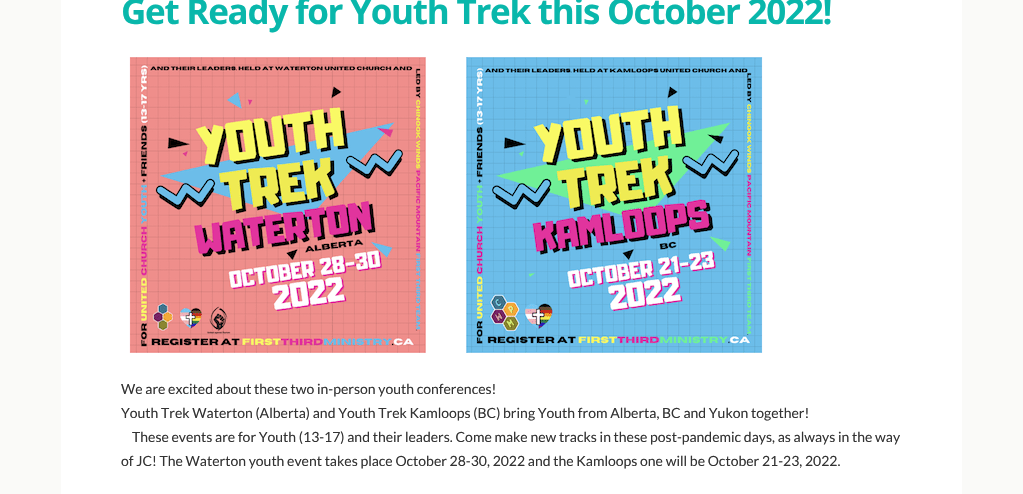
void draw(SkCanvas* canvas) {
  SkPaint paint;
  paint.setAntiAlias(true);
  auto face = [&](const char* family, int weight, float size, bool italic = false) {
    SkFontStyle style(weight, SkFontStyle::kNormal_Width,
      italic ? SkFontStyle::kItalic_Slant : SkFontStyle::kUpright_Slant);
    SkFont result(fontMgr->matchFamilyStyle(family, style), size);
    result.setSubpixel(true);
    return result;
  };
  auto writeSpaced = [&](const char* s, float x, float y, const SkFont& font, const SkPaint& ink, float letter, float word) {
    std::vector<SkGlyphID> glyphs(font.countText(s, strlen(s), SkTextEncoding::kUTF8));
    std::vector<float> xs(glyphs.size());
    font.textToGlyphs(s, strlen(s), SkTextEncoding::kUTF8, glyphs);
    font.getXPos(glyphs, xs, x);
    float extra = 0;
    for (size_t i = 0; i < glyphs.size(); i++) {
      xs[i] += extra;
      extra += letter + word * (glyphs[i] == font.unicharToGlyph(' '));
    }
    canvas->drawTextBlob(SkTextBlob::MakeFromPosHGlyphs(glyphs, xs, y, font), 0, 0, ink);
  };
  auto paste = [&](const char* path, float x, float y, float w, float h) {
    auto image = SkImages::DeferredFromEncodedData(SkData::MakeFromFileName(path));
    canvas->drawImageRect(image, SkRect::MakeXYWH(x, y, w, h), SkSamplingOptions());
  };
  canvas->clear(0xfffafaf8);
  paint.setColor(0xffffffff);
  canvas->drawRect(SkRect::MakeXYWH(61, 0, 901, 494), paint);
  paste("img/1.png", 129, 57, 634, 296);
  auto f0 = face("Open Sans", 700, 35);
  paint.setColor(0xff09b7ab);
  writeSpaced("Get Ready for Youth Trek this October 2022!", 121, 24, f0, paint, -1.25f, 0);
  auto f1 = face("Lato", 400, 14);
  paint.setColor(0xff333333);
  {
    const struct { const char* s; float x, y; } items[] = {
      {"We are excited about these two in-person youth conferences!", 121, 394},
      {"Youth Trek Waterton (Alberta) and Youth Trek Kamloops (BC) bring Youth from Alberta, BC and Yukon together!", 121, 418},
      {"These events are for Youth (13-17) and their leaders. Come make new tracks in these post-pandemic days, as always in the way", 132, 442},
      {"of JC! The Waterton youth event takes place October 28-30, 2022 and the Kamloops one will be October 21-23, 2022.", 121, 466},
    };
    for (auto [s, x, y] : items) {
      canvas->drawString(s, x, y, f1, paint);
    }
  }
}
